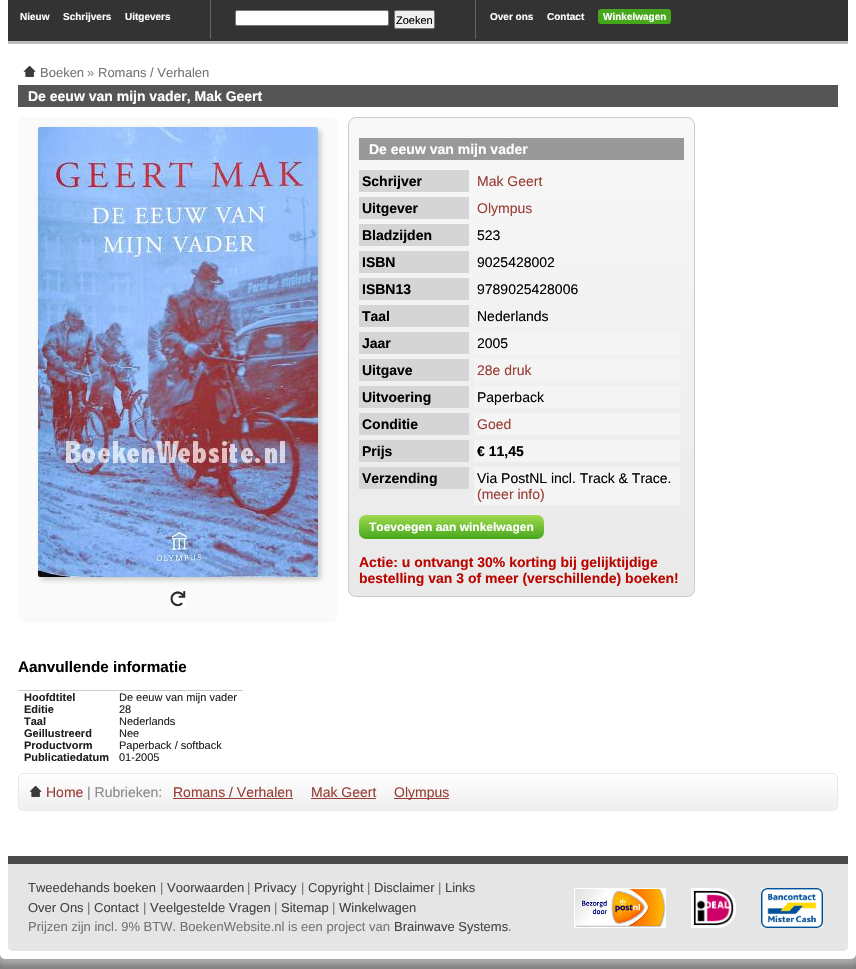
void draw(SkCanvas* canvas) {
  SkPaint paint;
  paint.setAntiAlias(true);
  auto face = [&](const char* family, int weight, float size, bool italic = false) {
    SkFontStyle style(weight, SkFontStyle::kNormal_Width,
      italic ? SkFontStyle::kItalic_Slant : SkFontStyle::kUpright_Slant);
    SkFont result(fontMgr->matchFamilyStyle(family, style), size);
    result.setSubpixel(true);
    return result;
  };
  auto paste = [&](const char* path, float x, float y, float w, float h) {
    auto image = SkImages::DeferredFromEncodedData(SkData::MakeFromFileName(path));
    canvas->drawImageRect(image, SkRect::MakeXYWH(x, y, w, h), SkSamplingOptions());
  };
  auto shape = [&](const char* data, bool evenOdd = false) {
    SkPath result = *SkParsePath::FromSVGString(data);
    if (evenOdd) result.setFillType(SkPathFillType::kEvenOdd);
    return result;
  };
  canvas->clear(0xff828282);
  paint.setColor(0xffaaaaaa);
  paint.setMaskFilter(SkMaskFilter::MakeBlur(kNormal_SkBlurStyle, 2.5f));
  canvas->drawRoundRect(SkRect::MakeXYWH(-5, -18, 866, 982), 10, 10, paint);
  paint.setMaskFilter(nullptr);
  paint.setColor(0xffffffff);
  canvas->drawRoundRect(SkRect::MakeXYWH(0, -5, 856, 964), 5, 5, paint);
  {
    const struct { float x, y, w, h; SkColor color; } items[] = {
      {8, 0, 840, 41, 0xff333333},
      {8, 41, 840, 3, 0xffbbbbbb},
      {210, 0, 1, 39, 0xff666666},
      {475, 0, 1, 39, 0xff666666},
    };
    for (auto [x, y, w, h, color] : items) {
      paint.setColor(color);
      canvas->drawRect(SkRect::MakeXYWH(x, y, w, h), paint);
    }
  }
  paint.setColor(0xffffffff);
  canvas->drawRoundRect(SkRect::MakeXYWH(235.5f, 10.5f, 153, 15), 1.5f, 1.5f, paint);
  paint.setStroke(true);
  paint.setStrokeWidth(1);
  paint.setColor(0xff767676);
  canvas->drawRoundRect(SkRect::MakeXYWH(235.5f, 10.5f, 153, 15), 1.5f, 1.5f, paint);
  paint.setStroke(false);
  paint.setColor(0xffefefef);
  canvas->drawRoundRect(SkRect::MakeXYWH(394.5f, 10.5f, 40, 18), 1.5f, 1.5f, paint);
  paint.setStroke(true);
  paint.setColor(0xff767676);
  canvas->drawRoundRect(SkRect::MakeXYWH(394.5f, 10.5f, 40, 18), 1.5f, 1.5f, paint);
  paint.setStroke(false);
  paint.setColor(0xff47a71c);
  canvas->drawRoundRect(SkRect::MakeXYWH(598, 9, 73, 15), 3, 3, paint);
  paste("img/1.png", 23, 65, 13, 12);
  paint.setColor(0xff555555);
  canvas->drawRect(SkRect::MakeXYWH(18, 85, 820, 22), paint);
  paint.setColor(0xfffafafa);
  canvas->drawRoundRect(SkRect::MakeXYWH(18, 117, 320, 506), 8, 8, paint);
  paint.setColor(0xffcccccc);
  paint.setMaskFilter(SkMaskFilter::MakeBlur(kNormal_SkBlurStyle, 2.5f));
  canvas->drawRoundRect(SkRect::MakeXYWH(41, 130, 280, 450), 2, 2, paint);
  paint.setMaskFilter(nullptr);
  paste("img/2.png", 38, 127, 280, 450);
  paste("img/3.png", 170, 590, 16, 17);
  canvas->save();
  canvas->clipPath(shape("M356 117H687C691.5 117 695 120.5 695 125V589C695 593.5 691.5 597 687 597H356C351.5 597 348 593.5 348 589V125C348 120.5 351.5 117 356 117Z"), true);
  {
    const SkColor colors[] = {0xfff8f8f8, 0xffe9e9e9};
    const float stops[] = {0, 1};
    const SkPoint ends[] = {{349, 118}, {349, 596}};
    paint.setShader(SkGradientShader::MakeLinear(ends, colors, stops, 2, SkTileMode::kClamp));
    paint.setAlpha(255);
  }
  canvas->drawRect(SkRect::MakeXYWH(348, 118, 347, 478), paint);
  canvas->restore();
  paint.setStroke(true);
  paint.setShader(nullptr);
  paint.setColor(0xffcccccc);
  canvas->drawRoundRect(SkRect::MakeXYWH(348.5f, 117.5f, 346, 479), 7.5f, 7.5f, paint);
  paint.setStroke(false);
  {
    const struct { float x, y, w, h; SkColor color; } items[] = {
      {359, 138, 325, 22, 0xff999999},
      {359, 170, 110, 22, 0xffd5d5d5},
      {359, 197, 110, 22, 0xffd5d5d5},
      {359, 224, 110, 22, 0xffd5d5d5},
      {359, 251, 110, 22, 0xffd5d5d5},
      {359, 278, 110, 22, 0xffd5d5d5},
      {359, 305, 110, 22, 0xffd5d5d5},
      {474, 325, 206, 2, 0xfff4f4f4},
      {359, 332, 110, 22, 0xffd5d5d5},
      {474, 332, 206, 22, 0xfff4f4f4},
      {359, 359, 110, 22, 0xffd5d5d5},
      {474, 359, 206, 22, 0xfff4f4f4},
      {359, 386, 110, 22, 0xffd5d5d5},
      {474, 386, 206, 22, 0xfff4f4f4},
      {359, 413, 110, 22, 0xffd5d5d5},
      {474, 413, 206, 22, 0xfff4f4f4},
      {359, 440, 110, 22, 0xffd5d5d5},
      {474, 440, 206, 22, 0xfff4f4f4},
      {359, 467, 110, 22, 0xffd5d5d5},
      {474, 467, 206, 38, 0xfff4f4f4},
    };
    for (auto [x, y, w, h, color] : items) {
      paint.setColor(color);
      canvas->drawRect(SkRect::MakeXYWH(x, y, w, h), paint);
    }
  }
  {
    const SkColor colors[] = {0xff9fda4f, 0xff47a71c};
    const float stops[] = {0, 1};
    const SkPoint ends[] = {{359, 515}, {359, 539}};
    paint.setShader(SkGradientShader::MakeLinear(ends, colors, stops, 2, SkTileMode::kClamp));
    paint.setAlpha(255);
  }
  canvas->drawRoundRect(SkRect::MakeXYWH(359, 515, 185, 24), 7, 7, paint);
  paint.setShader(nullptr);
  paint.setColor(0xffcccccc);
  canvas->drawRect(SkRect::MakeXYWH(18, 690, 225, 1), paint);
  canvas->save();
  canvas->clipPath(shape("M23 773H833C836 773 838 775 838 778V806C838 809 836 811 833 811H23C20 811 18 809 18 806V778C18 775 20 773 23 773Z"), true);
  {
    const SkColor colors[] = {0xffffffff, 0xffeeeeee};
    const float stops[] = {0, 1};
    const SkPoint ends[] = {{19, 774}, {19, 810}};
    paint.setShader(SkGradientShader::MakeLinear(ends, colors, stops, 2, SkTileMode::kClamp));
    paint.setAlpha(255);
  }
  canvas->drawRect(SkRect::MakeXYWH(18, 774, 820, 36), paint);
  canvas->restore();
  paint.setStroke(true);
  paint.setShader(nullptr);
  paint.setColor(0xffe9e9e9);
  canvas->drawRoundRect(SkRect::MakeXYWH(18.5f, 773.5f, 819, 37), 4.5f, 4.5f, paint);
  paste("img/4.png", 29, 785, 13, 12);
  paint.setStroke(false);
  {
    const struct { float x, y, w, h; SkColor color; } items[] = {
      {173, 798, 120, 1, 0xff983e35},
      {311, 798, 65, 1, 0xff983e35},
      {394, 798, 55, 1, 0xff983e35},
    };
    for (auto [x, y, w, h, color] : items) {
      paint.setColor(color);
      canvas->drawRect(SkRect::MakeXYWH(x, y, w, h), paint);
    }
  }
  paint.setColor(0xffe5e5e5);
  canvas->drawPath(shape("M8 856H848V946C848 949 846 951 843 951H13C10 951 8 949 8 946Z"), paint);
  paint.setColor(0xff494949);
  canvas->drawRect(SkRect::MakeXYWH(8, 856, 840, 8), paint);
  paste("img/5.png", 574, 888, 92, 40);
  paste("img/6.png", 691, 888, 45, 40);
  paste("img/7.png", 761, 888, 62, 40);
  auto f0 = face("Liberation Sans", 700, 10);
  paint.setColor(0xffffffff);
  {
    const struct { const char* s; float x, y; } items[] = {
      {"Nieuw", 20, 20},
      {"Schrijvers", 63, 20},
      {"Uitgevers", 125, 20},
    };
    for (auto [s, x, y] : items) {
      canvas->drawString(s, x, y, f0, paint);
    }
  }
  auto f1 = face("Liberation Sans", 400, 11);
  paint.setColor(0xff000000);
  canvas->drawString("Zoeken", 396, 24, f1, paint);
  paint.setColor(0xffffffff);
  {
    const struct { const char* s; float x, y; } items[] = {
      {"Over ons", 490, 20},
      {"Contact", 547, 20},
      {"Winkelwagen", 603, 20},
    };
    for (auto [s, x, y] : items) {
      canvas->drawString(s, x, y, f0, paint);
    }
  }
  auto f2 = face("Liberation Sans", 400, 13);
  paint.setColor(0xff747474);
  canvas->drawString("Boeken", 40, 77, f2, paint);
  paint.setColor(0xff888888);
  canvas->drawString("»", 87, 77, f2, paint);
  paint.setColor(0xff747474);
  canvas->drawString("Romans / Verhalen", 98, 77, f2, paint);
  auto f3 = face("Liberation Sans", 700, 14);
  paint.setColor(0xffffffff);
  canvas->drawString("De eeuw van mijn vader, Mak Geert", 28, 101, f3, paint);
  canvas->drawString("De eeuw van mijn vader", 369, 154, f3, paint);
  paint.setColor(0xff000000);
  canvas->drawString("Schrijver", 362, 186, f3, paint);
  auto f4 = face("Liberation Sans", 400, 14);
  paint.setColor(0xff983e35);
  canvas->drawString("Mak Geert", 477, 186, f4, paint);
  paint.setColor(0xff000000);
  canvas->drawString("Uitgever", 362, 213, f3, paint);
  paint.setColor(0xff983e35);
  canvas->drawString("Olympus", 477, 213, f4, paint);
  paint.setColor(0xff000000);
  canvas->drawString("Bladzijden", 362, 240, f3, paint);
  canvas->drawString("523", 477, 240, f4, paint);
  canvas->drawString("ISBN", 362, 267, f3, paint);
  canvas->drawString("9025428002", 477, 267, f4, paint);
  canvas->drawString("ISBN13", 362, 294, f3, paint);
  canvas->drawString("9789025428006", 477, 294, f4, paint);
  canvas->drawString("Taal", 362, 321, f3, paint);
  canvas->drawString("Nederlands", 477, 321, f4, paint);
  canvas->drawString("Jaar", 362, 348, f3, paint);
  canvas->drawString("2005", 477, 348, f4, paint);
  canvas->drawString("Uitgave", 362, 375, f3, paint);
  paint.setColor(0xff983e35);
  canvas->drawString("28e druk", 477, 375, f4, paint);
  paint.setColor(0xff000000);
  canvas->drawString("Uitvoering", 362, 402, f3, paint);
  canvas->drawString("Paperback", 477, 402, f4, paint);
  canvas->drawString("Conditie", 362, 429, f3, paint);
  paint.setColor(0xff983e35);
  canvas->drawString("Goed", 477, 429, f4, paint);
  paint.setColor(0xff000000);
  {
    const struct { const char* s; float x, y; } items[] = {
      {"Prijs", 362, 456},
      {"€ 11,45", 477, 456},
      {"Verzending", 362, 483},
    };
    for (auto [s, x, y] : items) {
      canvas->drawString(s, x, y, f3, paint);
    }
  }
  canvas->drawString("Via PostNL incl. Track & Trace.", 477, 483, f4, paint);
  paint.setColor(0xff983e35);
  canvas->drawString("(meer info)", 477, 499, f4, paint);
  auto f5 = face("Liberation Sans", 700, 12);
  paint.setColor(0xffffffff);
  canvas->drawString("Toevoegen aan winkelwagen", 369, 531, f5, paint);
  paint.setColor(0xffbb0600);
  canvas->drawString("Actie: u ontvangt 30% korting bij gelijktijdige", 359, 567, f3, paint);
  canvas->drawString("bestelling van 3 of meer (verschillende) boeken!", 359, 583, f3, paint);
  auto f6 = face("Liberation Sans", 700, 15.25f);
  paint.setColor(0xff000000);
  canvas->drawString("Aanvullende informatie", 18, 672, f6, paint);
  auto f7 = face("Liberation Sans", 700, 11);
  paint.setColor(0xff1f1f1f);
  canvas->drawString("Hoofdtitel", 24, 701, f7, paint);
  canvas->drawString("De eeuw van mijn vader", 119, 701, f1, paint);
  canvas->drawString("Editie", 24, 713, f7, paint);
  canvas->drawString("28", 119, 713, f1, paint);
  canvas->drawString("Taal", 24, 725, f7, paint);
  canvas->drawString("Nederlands", 119, 725, f1, paint);
  canvas->drawString("Geillustreerd", 24, 737, f7, paint);
  canvas->drawString("Nee", 119, 737, f1, paint);
  canvas->drawString("Productvorm", 24, 749, f7, paint);
  canvas->drawString("Paperback / softback", 119, 749, f1, paint);
  canvas->drawString("Publicatiedatum", 24, 761, f7, paint);
  canvas->drawString("01-2005", 119, 761, f1, paint);
  paint.setColor(0xff983e35);
  canvas->drawString("Home", 46, 797, f4, paint);
  paint.setColor(0xff888888);
  canvas->drawString("| Rubrieken:", 87, 797, f4, paint);
  paint.setColor(0xff983e35);
  {
    const struct { const char* s; float x, y; } items[] = {
      {"Romans / Verhalen", 173, 797},
      {"Mak Geert", 311, 797},
      {"Olympus", 394, 797},
    };
    for (auto [s, x, y] : items) {
      canvas->drawString(s, x, y, f4, paint);
    }
  }
  paint.setColor(0xff444444);
  canvas->drawString("Tweedehands boeken", 28, 892, f2, paint);
  paint.setColor(0xff747474);
  canvas->drawString("|", 160, 892, f2, paint);
  paint.setColor(0xff444444);
  canvas->drawString("Voorwaarden", 167, 892, f2, paint);
  paint.setColor(0xff747474);
  canvas->drawString("|", 247, 892, f2, paint);
  paint.setColor(0xff444444);
  canvas->drawString("Privacy", 254, 892, f2, paint);
  paint.setColor(0xff747474);
  canvas->drawString("|", 301, 892, f2, paint);
  paint.setColor(0xff444444);
  canvas->drawString("Copyright", 308, 892, f2, paint);
  paint.setColor(0xff747474);
  canvas->drawString("|", 367, 892, f2, paint);
  paint.setColor(0xff444444);
  canvas->drawString("Disclaimer", 374, 892, f2, paint);
  paint.setColor(0xff747474);
  canvas->drawString("|", 438, 892, f2, paint);
  paint.setColor(0xff444444);
  canvas->drawString("Links", 445, 892, f2, paint);
  canvas->drawString("Over Ons", 28, 912, f2, paint);
  paint.setColor(0xff747474);
  canvas->drawString("|", 87, 912, f2, paint);
  paint.setColor(0xff444444);
  canvas->drawString("Contact", 94, 912, f2, paint);
  paint.setColor(0xff747474);
  canvas->drawString("|", 143, 912, f2, paint);
  paint.setColor(0xff444444);
  canvas->drawString("Veelgestelde Vragen", 150, 912, f2, paint);
  paint.setColor(0xff747474);
  canvas->drawString("|", 274, 912, f2, paint);
  paint.setColor(0xff444444);
  canvas->drawString("Sitemap", 281, 912, f2, paint);
  paint.setColor(0xff747474);
  canvas->drawString("|", 332, 912, f2, paint);
  paint.setColor(0xff444444);
  canvas->drawString("Winkelwagen", 339, 912, f2, paint);
  paint.setColor(0xff747474);
  canvas->drawString("Prijzen zijn incl. 9% BTW. BoekenWebsite.nl is een project van", 28, 931, f2, paint);
  paint.setColor(0xff444444);
  canvas->drawString("Brainwave Systems", 394, 931, f2, paint);
  paint.setColor(0xff747474);
  canvas->drawString(".", 508, 931, f2, paint);
}
